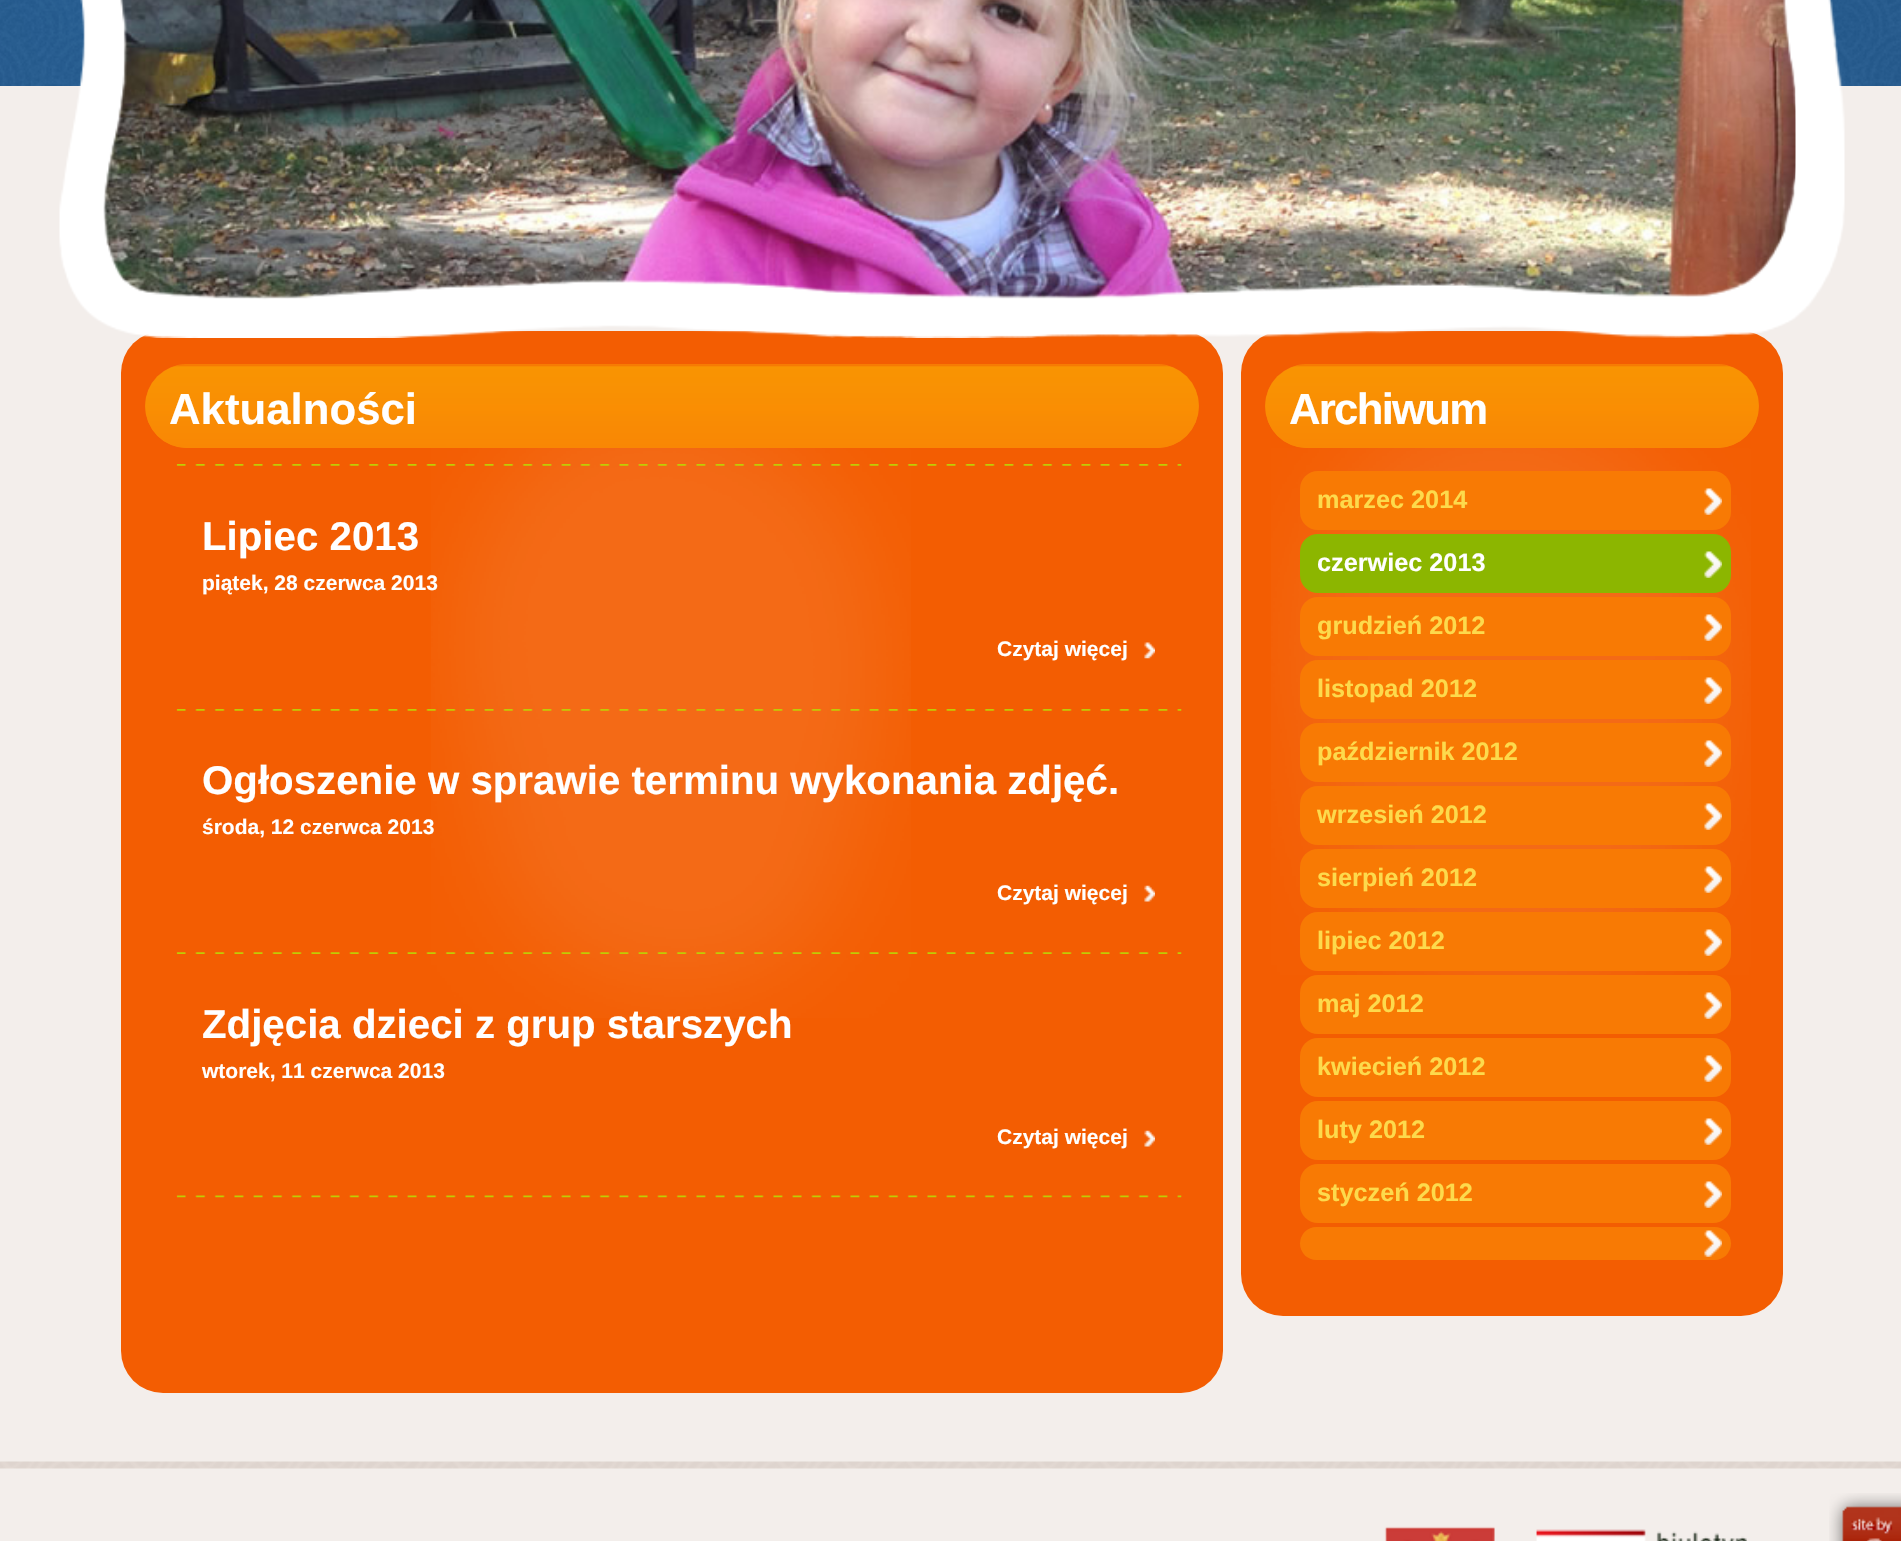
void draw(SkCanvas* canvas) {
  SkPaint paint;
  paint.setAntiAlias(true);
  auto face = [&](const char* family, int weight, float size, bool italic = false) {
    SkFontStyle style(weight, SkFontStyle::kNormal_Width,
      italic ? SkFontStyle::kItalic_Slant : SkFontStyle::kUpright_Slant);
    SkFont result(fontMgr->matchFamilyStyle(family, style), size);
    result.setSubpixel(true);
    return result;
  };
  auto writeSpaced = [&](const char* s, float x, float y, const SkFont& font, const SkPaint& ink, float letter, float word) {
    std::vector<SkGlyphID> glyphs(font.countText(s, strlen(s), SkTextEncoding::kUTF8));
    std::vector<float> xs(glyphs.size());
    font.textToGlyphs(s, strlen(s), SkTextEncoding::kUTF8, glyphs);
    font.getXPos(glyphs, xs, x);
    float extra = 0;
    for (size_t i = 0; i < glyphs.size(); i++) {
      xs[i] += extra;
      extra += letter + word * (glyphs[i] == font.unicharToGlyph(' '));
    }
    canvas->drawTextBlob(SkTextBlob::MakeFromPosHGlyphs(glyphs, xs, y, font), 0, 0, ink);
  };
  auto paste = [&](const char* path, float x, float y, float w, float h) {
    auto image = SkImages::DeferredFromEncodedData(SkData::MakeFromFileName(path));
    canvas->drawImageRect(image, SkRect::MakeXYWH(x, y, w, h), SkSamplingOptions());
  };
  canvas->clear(0xfff3eeeb);
  paste("img/1.png", 0, 0, 1901, 86);
  paint.setColor(0xffffffff);
  canvas->drawRect(SkRect::MakeXYWH(103, 78, 1698, 234), paint);
  paste("img/3.png", 103, 0, 1693, 300);
  paint.setColor(0xfff35d02);
  canvas->drawRoundRect(SkRect::MakeXYWH(121, 331, 1102, 1062), 42, 42, paint);
  canvas->drawRoundRect(SkRect::MakeXYWH(1241, 331, 542, 985), 42, 42, paint);
  paste("img/2.png", 59, 0, 1786, 338);
  paste("img/4.png", 431, 448, 480, 570);
  paint.setColor(0xfff98504);
  canvas->drawRoundRect(SkRect::MakeXYWH(145, 364, 1054, 84), 42, 42, paint);
  paste("img/5.png", 145, 364, 1054, 84);
  paste("img/6.png", 176, 1195, 1006, 3);
  paste("img/7.png", 176, 464, 1006, 2);
  paste("img/8.png", 1144, 642, 11, 17);
  paste("img/9.png", 176, 709, 1006, 2);
  paste("img/10.png", 1144, 885, 11, 17);
  paste("img/11.png", 176, 952, 1006, 2);
  paste("img/10.png", 1144, 1130, 11, 17);
  paste("img/12.png", 1271, 448, 480, 527);
  canvas->drawRoundRect(SkRect::MakeXYWH(1265, 364, 494, 84), 42, 42, paint);
  paste("img/13.png", 1265, 364, 494, 84);
  paint.setColor(0xfff87a04);
  canvas->drawRoundRect(SkRect::MakeXYWH(1300, 471, 431, 59), 18, 18, paint);
  paste("img/14.png", 1704, 488, 18, 27);
  paint.setColor(0xff8cb600);
  canvas->drawRoundRect(SkRect::MakeXYWH(1300, 534, 431, 59), 18, 18, paint);
  paste("img/15.png", 1704, 551, 18, 27);
  paint.setColor(0xfff87a04);
  canvas->drawRoundRect(SkRect::MakeXYWH(1300, 597, 431, 59), 18, 18, paint);
  paste("img/14.png", 1704, 614, 18, 27);
  canvas->drawRoundRect(SkRect::MakeXYWH(1300, 660, 431, 59), 18, 18, paint);
  paste("img/14.png", 1704, 677, 18, 27);
  canvas->drawRoundRect(SkRect::MakeXYWH(1300, 723, 431, 59), 18, 18, paint);
  paste("img/14.png", 1704, 740, 18, 27);
  canvas->drawRoundRect(SkRect::MakeXYWH(1300, 786, 431, 59), 18, 18, paint);
  paste("img/14.png", 1704, 803, 18, 27);
  canvas->drawRoundRect(SkRect::MakeXYWH(1300, 849, 431, 59), 18, 18, paint);
  paste("img/14.png", 1704, 866, 18, 27);
  canvas->drawRoundRect(SkRect::MakeXYWH(1300, 912, 431, 59), 18, 18, paint);
  paste("img/14.png", 1704, 929, 18, 27);
  canvas->drawRoundRect(SkRect::MakeXYWH(1300, 975, 431, 59), 18, 18, paint);
  paste("img/14.png", 1704, 992, 18, 27);
  canvas->drawRoundRect(SkRect::MakeXYWH(1300, 1038, 431, 59), 18, 18, paint);
  paste("img/14.png", 1704, 1055, 18, 27);
  canvas->drawRoundRect(SkRect::MakeXYWH(1300, 1101, 431, 59), 18, 18, paint);
  paste("img/14.png", 1704, 1118, 18, 27);
  canvas->drawRoundRect(SkRect::MakeXYWH(1300, 1164, 431, 59), 18, 18, paint);
  paste("img/14.png", 1704, 1181, 18, 27);
  canvas->drawRoundRect(SkRect::MakeXYWH(1300, 1227, 431, 33), 16.5f, 16.5f, paint);
  paste("img/16.png", 1704, 1230, 18, 27);
  paste("img/17.png", 0, 1461, 1901, 8);
  paste("img/18.png", 1384, 1526, 111, 15);
  paste("img/19.png", 1536, 1529, 211, 12);
  paste("img/20.png", 1829, 1493, 72, 48);
  auto f0 = face("Liberation Sans", 700, 43.75f);
  paint.setColor(0xffffffff);
  canvas->drawString("Aktualności", 169, 424, f0, paint);
  auto f1 = face("Liberation Sans", 700, 40.25f);
  canvas->drawString("Lipiec 2013", 202, 550, f1, paint);
  auto f2 = face("Liberation Sans", 700, 21);
  canvas->drawString("piątek, 28 czerwca 2013", 202, 590, f2, paint);
  canvas->drawString("Czytaj więcej", 997, 656, f2, paint);
  canvas->drawString("Ogłoszenie w sprawie terminu wykonania zdjęć.", 202, 794, f1, paint);
  canvas->drawString("środa, 12 czerwca 2013", 202, 834, f2, paint);
  canvas->drawString("Czytaj więcej", 997, 900, f2, paint);
  canvas->drawString("Zdjęcia dzieci z grup starszych", 202, 1038, f1, paint);
  canvas->drawString("wtorek, 11 czerwca 2013", 202, 1078, f2, paint);
  canvas->drawString("Czytaj więcej", 997, 1144, f2, paint);
  writeSpaced("Archiwum", 1289, 424, f0, paint, -1.75f, 0);
  auto f3 = face("Liberation Sans", 700, 25.25f);
  paint.setColor(0xfffdda4c);
  canvas->drawString("marzec 2014", 1317, 508, f3, paint);
  paint.setColor(0xffffffff);
  canvas->drawString("czerwiec 2013", 1317, 571, f3, paint);
  paint.setColor(0xfffdda4c);
  {
    const struct { const char* s; float x, y; } items[] = {
      {"grudzień 2012", 1317, 634},
      {"listopad 2012", 1317, 697},
      {"październik 2012", 1317, 760},
      {"wrzesień 2012", 1317, 823},
      {"sierpień 2012", 1317, 886},
      {"lipiec 2012", 1317, 949},
      {"maj 2012", 1317, 1012},
      {"kwiecień 2012", 1317, 1075},
      {"luty 2012", 1317, 1138},
      {"styczeń 2012", 1317, 1201},
    };
    for (auto [s, x, y] : items) {
      canvas->drawString(s, x, y, f3, paint);
    }
  }
}
